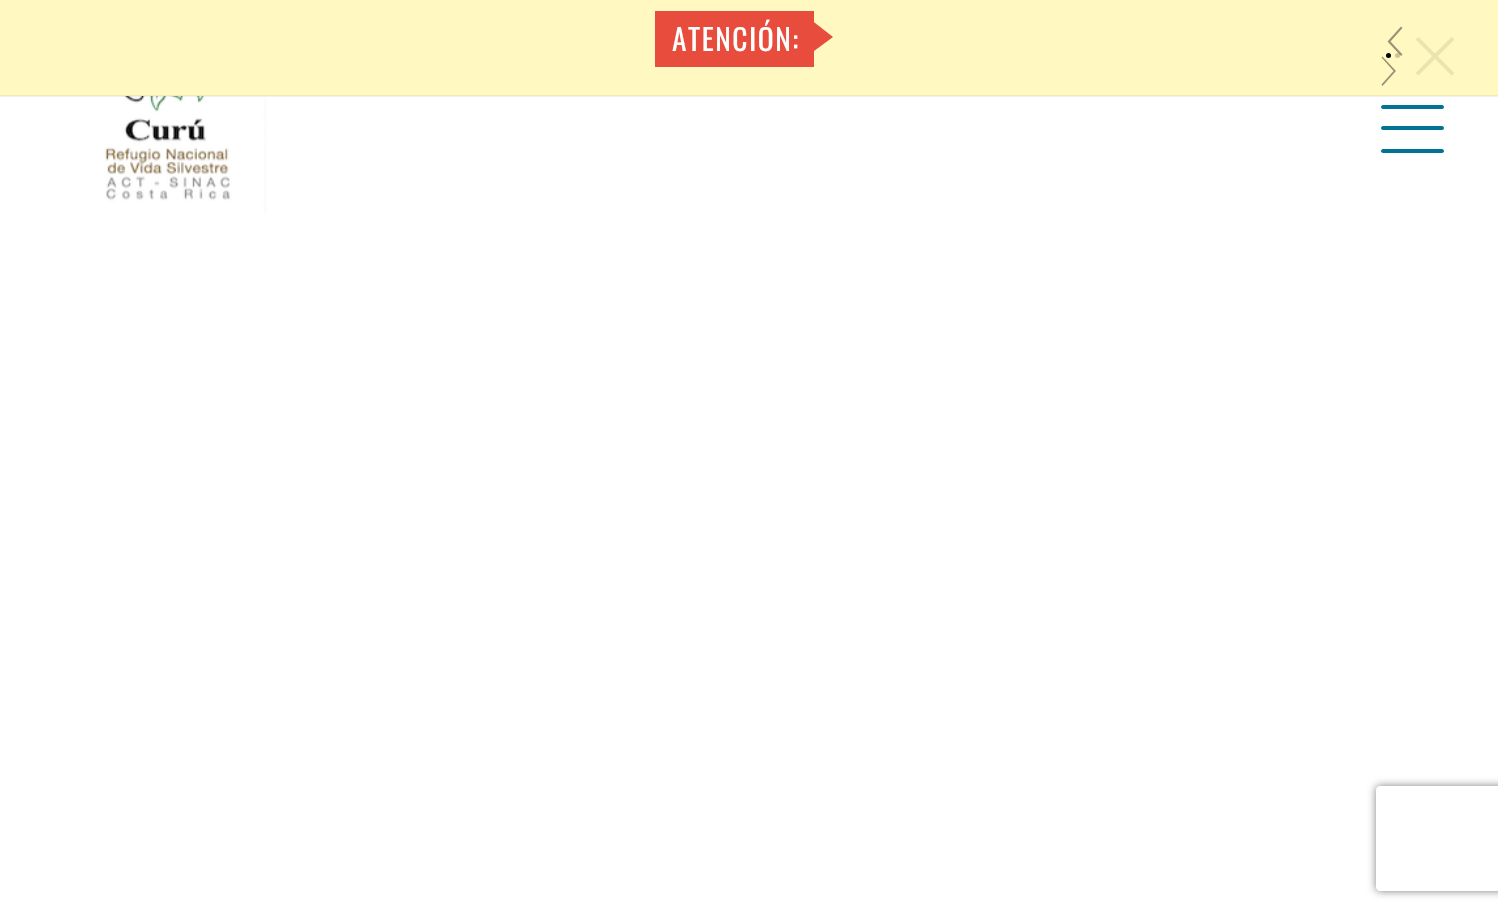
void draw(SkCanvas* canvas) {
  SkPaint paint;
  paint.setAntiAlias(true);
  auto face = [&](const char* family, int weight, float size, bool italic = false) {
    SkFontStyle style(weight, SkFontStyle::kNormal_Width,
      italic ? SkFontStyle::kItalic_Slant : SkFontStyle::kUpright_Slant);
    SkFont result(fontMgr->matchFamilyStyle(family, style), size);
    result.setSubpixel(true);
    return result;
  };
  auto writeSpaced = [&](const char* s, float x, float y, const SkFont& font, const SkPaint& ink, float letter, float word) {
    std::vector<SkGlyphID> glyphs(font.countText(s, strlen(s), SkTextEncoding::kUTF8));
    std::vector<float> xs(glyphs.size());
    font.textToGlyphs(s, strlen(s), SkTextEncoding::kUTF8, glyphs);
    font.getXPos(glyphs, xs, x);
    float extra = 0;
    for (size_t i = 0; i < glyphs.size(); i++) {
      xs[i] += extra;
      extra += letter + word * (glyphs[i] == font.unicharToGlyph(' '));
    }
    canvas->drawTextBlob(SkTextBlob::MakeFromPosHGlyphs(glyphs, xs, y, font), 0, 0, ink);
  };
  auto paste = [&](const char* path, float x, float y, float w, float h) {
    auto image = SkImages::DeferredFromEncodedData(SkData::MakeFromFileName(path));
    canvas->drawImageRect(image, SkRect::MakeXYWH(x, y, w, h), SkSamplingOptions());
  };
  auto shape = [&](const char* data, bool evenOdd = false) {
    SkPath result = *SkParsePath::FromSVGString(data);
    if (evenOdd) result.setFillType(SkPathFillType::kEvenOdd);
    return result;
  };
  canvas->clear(0xffffffff);
  paint.setColor(0xfffff8c1);
  canvas->drawRect(SkRect::MakeXYWH(0, 0, 1498, 96), paint);
  paste("img/1.png", 105, 96, 161, 117);
  paint.setColor(0x0d000000);
  canvas->drawRect(SkRect::MakeXYWH(0, 95, 1498, 2), paint);
  paint.setColor(0xffe74c3c);
  canvas->drawRect(SkRect::MakeXYWH(655, 11, 159, 56), paint);
  canvas->drawPath(shape("M810 54V19L833 37Z"), paint);
  paint.setColor(0xff999574);
  canvas->drawPath(shape("M1401 56L1402.5 54.5L1390.5 41.5L1402.5 28L1401 26.5L1387.5 41.5Z"), paint);
  paint.setColor(0xff000000);
  canvas->drawCircle(1388.5f, 55.5f, 2.5f, paint);
  paint.setColor(0x33000000);
  canvas->drawCircle(1397.5f, 55.5f, 2.5f, paint);
  paint.setColor(0xff999574);
  canvas->drawPath(shape("M1382.5 86L1396 71L1382.5 56.5L1381.5 57.5L1393.5 71L1381.5 84.5Z"), paint);
  paint.setColor(0xff017395);
  canvas->drawPath(shape("M1383 105H1412V109H1383C1382 109 1381 108 1381 107C1381 106 1382 105 1383 105Z"), paint);
  canvas->drawPath(shape("M1412 105H1442C1443 105 1444 106 1444 107C1444 108 1443 109 1442 109H1412Z"), paint);
  canvas->drawPath(shape("M1383 126H1412V130H1383C1382 130 1381 129 1381 128C1381 127 1382 126 1383 126Z"), paint);
  canvas->drawPath(shape("M1412 126H1442C1443 126 1444 127 1444 128C1444 129 1443 130 1442 130H1412Z"), paint);
  canvas->drawPath(shape("M1383 149H1412V153H1383C1382 153 1381 152 1381 151C1381 150 1382 149 1383 149Z"), paint);
  canvas->drawPath(shape("M1412 149H1442C1443 149 1444 150 1444 151C1444 152 1443 153 1442 153H1412Z"), paint);
  canvas->save();
  canvas->clipPath(shape("M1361 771H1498V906H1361ZM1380 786H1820C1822 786 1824 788 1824 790V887C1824 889 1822 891 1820 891H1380C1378 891 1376 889 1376 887V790C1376 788 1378 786 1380 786Z", true), true);
  paint.setColor(0xff808080);
  paint.setMaskFilter(SkMaskFilter::MakeBlur(kNormal_SkBlurStyle, 4.5f));
  canvas->drawRoundRect(SkRect::MakeXYWH(1376, 786, 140, 105), 4, 4, paint);
  paint.setMaskFilter(nullptr);
  canvas->restore();
  auto f0 = face("Oswald", 400, 29.5f);
  paint.setColor(0xffffffff);
  writeSpaced("ATENCIÓN:", 672, 51, f0, paint, 1.5f, 0);
  auto f1 = face("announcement", 700, 37);
  paint.setColor(0xffebe4b1);
  canvas->drawString("c", 1416, 73, f1, paint);
}
